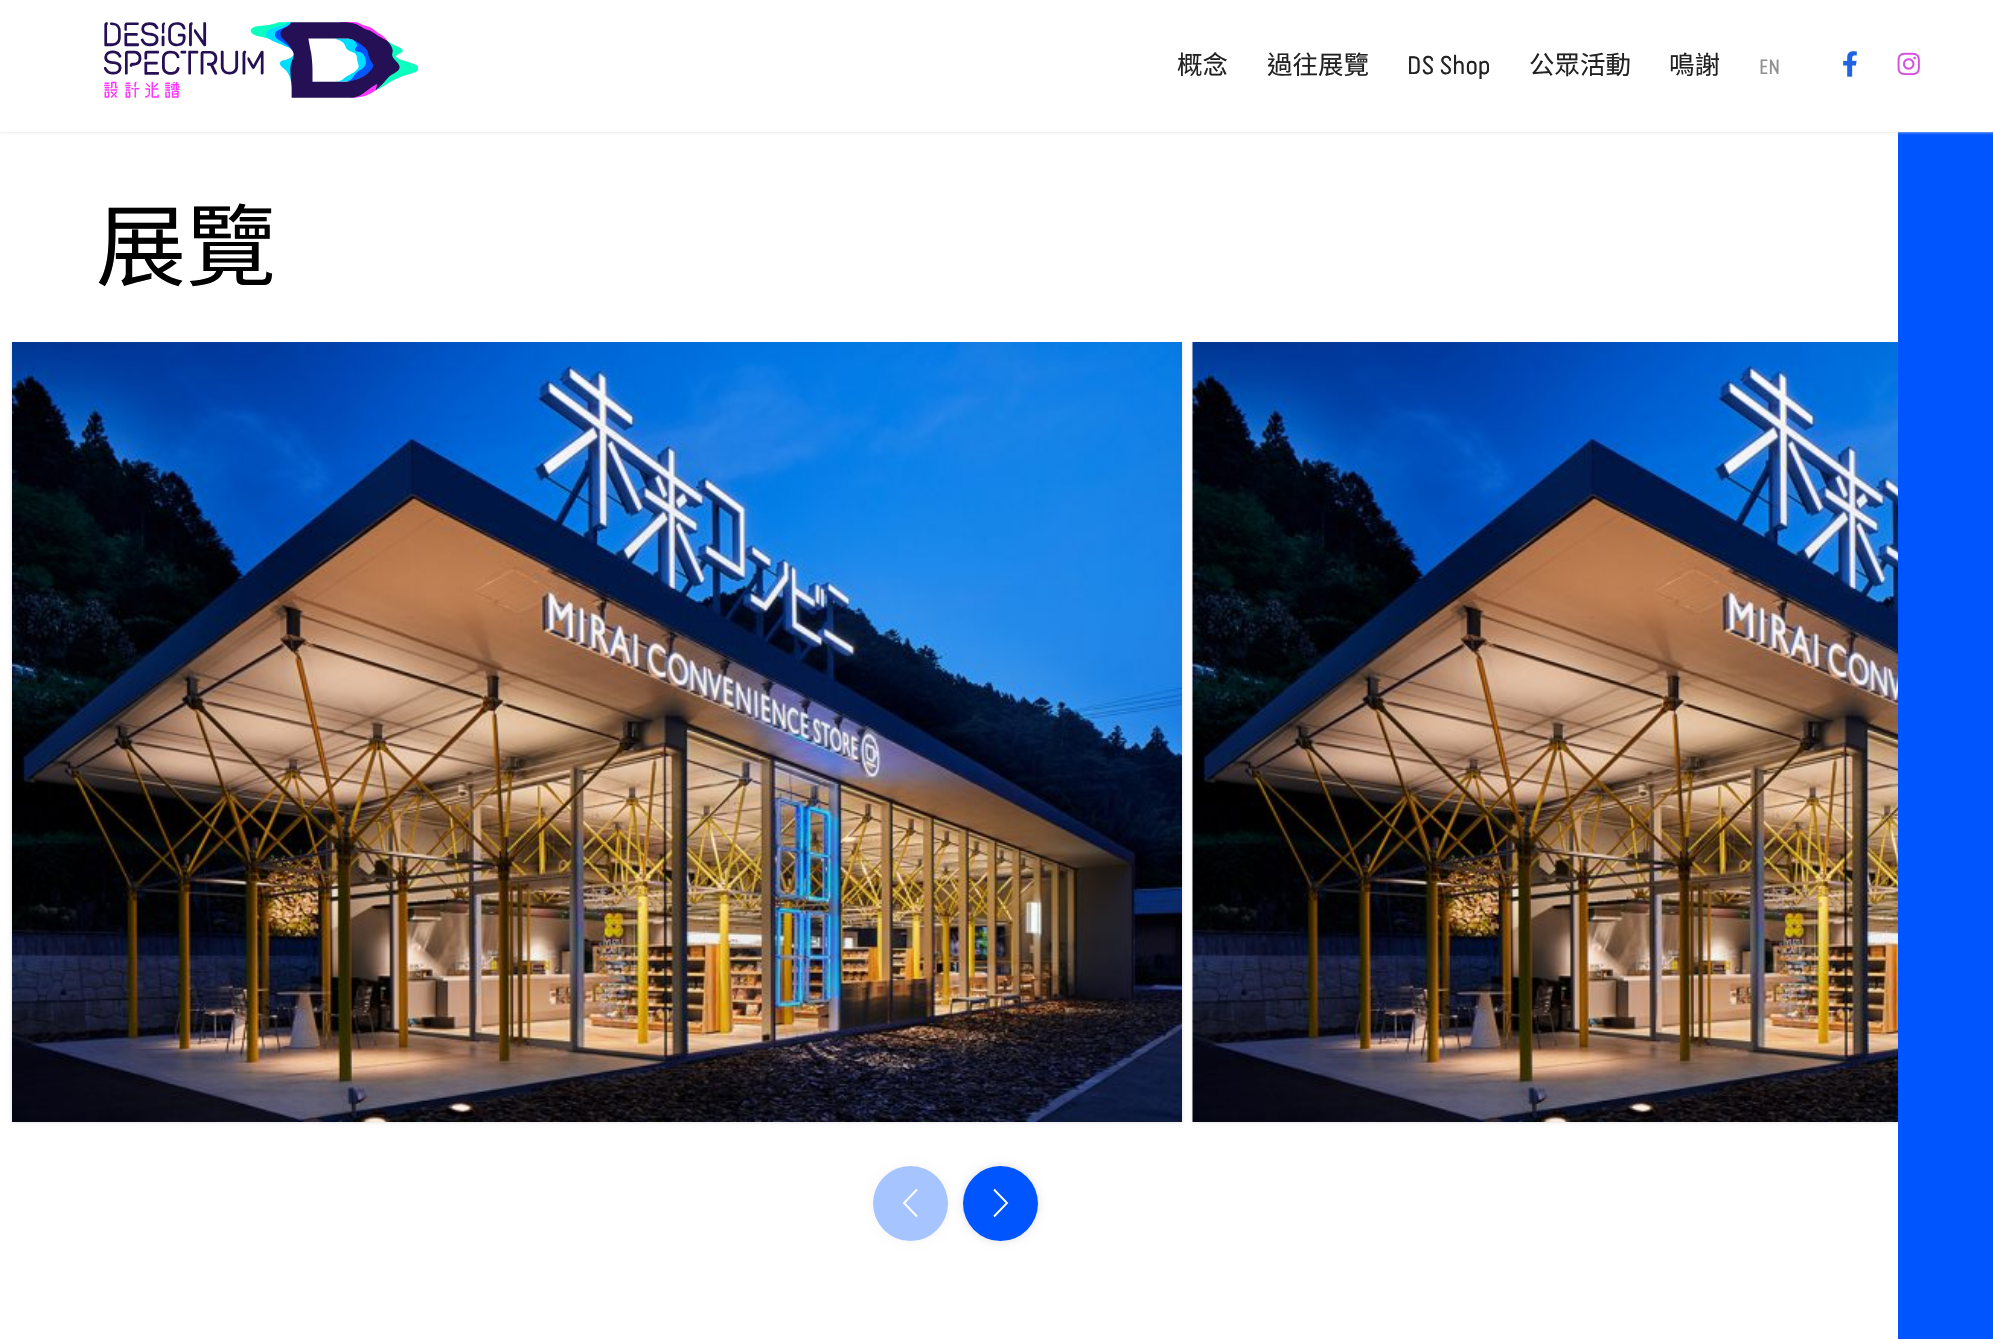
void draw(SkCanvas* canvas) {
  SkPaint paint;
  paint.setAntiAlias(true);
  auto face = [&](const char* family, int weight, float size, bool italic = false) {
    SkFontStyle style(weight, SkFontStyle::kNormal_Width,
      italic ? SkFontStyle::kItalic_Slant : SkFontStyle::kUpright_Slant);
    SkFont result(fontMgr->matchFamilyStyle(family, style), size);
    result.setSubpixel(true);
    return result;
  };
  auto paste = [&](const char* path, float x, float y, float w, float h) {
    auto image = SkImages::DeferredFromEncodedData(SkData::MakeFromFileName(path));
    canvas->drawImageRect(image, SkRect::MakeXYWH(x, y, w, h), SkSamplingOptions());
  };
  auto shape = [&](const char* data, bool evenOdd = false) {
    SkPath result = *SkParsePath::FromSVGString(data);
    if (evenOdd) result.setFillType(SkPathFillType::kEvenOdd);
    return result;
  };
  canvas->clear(0xffffffff);
  paint.setColor(0xff0055ff);
  canvas->drawRect(SkRect::MakeXYWH(1898, 132, 95, 1207), paint);
  paint.setColor(0xffdddddd);
  paint.setMaskFilter(SkMaskFilter::MakeBlur(kNormal_SkBlurStyle, 1.5f));
  canvas->drawRect(SkRect::MakeXYWH(0, 0, 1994, 132), paint);
  paint.setMaskFilter(nullptr);
  paint.setColor(0xffffffff);
  canvas->drawRect(SkRect::MakeXYWH(0, 0, 1993, 132), paint);
  paste("img/1.png", 104, 22, 315, 76);
  paste("img/2.png", 1843, 51, 14, 26);
  paste("img/3.png", 1897, 52, 23, 24);
  canvas->save();
  canvas->clipRect(SkRect::MakeXYWH(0, 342, 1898, 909));
  paint.setColor(0xffdddddd);
  paint.setMaskFilter(SkMaskFilter::MakeBlur(kNormal_SkBlurStyle, 2));
  canvas->drawRect(SkRect::MakeXYWH(12, 342, 1170, 780), paint);
  paint.setMaskFilter(nullptr);
  canvas->restore();
  paste("img/4.png", 12, 342, 1170, 780);
  canvas->save();
  canvas->clipRect(SkRect::MakeXYWH(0, 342, 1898, 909));
  paint.setMaskFilter(SkMaskFilter::MakeBlur(kNormal_SkBlurStyle, 2));
  canvas->drawRect(SkRect::MakeXYWH(1193, 342, 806, 780), paint);
  paint.setMaskFilter(nullptr);
  canvas->restore();
  paste("img/5.png", 1192, 342, 706, 780);
  paint.setColor(0xfff3f3f3);
  paint.setMaskFilter(SkMaskFilter::MakeBlur(kNormal_SkBlurStyle, 4));
  canvas->drawRoundRect(SkRect::MakeXYWH(873, 1166, 75, 75), 37.5f, 37.5f, paint);
  paint.setMaskFilter(nullptr);
  paint.setColor(0xffa6c4ff);
  canvas->drawCircle(910.5f, 1203.5f, 37.5f, paint);
  paint.setStroke(true);
  paint.setStrokeWidth(1.9f);
  paint.setColor(0xffffffff);
  canvas->drawPath(shape("M917 1189.5L904 1203L917 1216.5"), paint);
  paint.setStroke(false);
  paint.setColor(0xffdddddd);
  paint.setMaskFilter(SkMaskFilter::MakeBlur(kNormal_SkBlurStyle, 4));
  canvas->drawRoundRect(SkRect::MakeXYWH(963, 1166, 75, 75), 37.5f, 37.5f, paint);
  paint.setMaskFilter(nullptr);
  paint.setColor(0xff0055ff);
  canvas->drawCircle(1000.5f, 1203.5f, 37.5f, paint);
  paint.setStroke(true);
  paint.setColor(0xffffffff);
  canvas->drawPath(shape("M994 1216.5L1007 1203L994 1189.5"), paint);
  auto f0 = face("Noto Sans CJK HK", 400, 25.5f);
  paint.setStroke(false);
  paint.setColor(0xff222222);
  canvas->drawString("概念", 1177, 74, f0, paint);
  canvas->drawString("過往展覽", 1267, 74, f0, paint);
  auto f1 = face("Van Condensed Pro", 400, 25.5f);
  canvas->drawString("DS Shop", 1407, 74, f1, paint);
  canvas->drawString("公眾活動", 1529, 74, f0, paint);
  canvas->drawString("鳴謝", 1669, 74, f0, paint);
  auto f2 = face("Van Condensed Pro", 400, 21);
  paint.setColor(0xff919191);
  canvas->drawString("EN", 1759, 74, f2, paint);
  auto f3 = face("Noto Sans CJK HK", 400, 90);
  paint.setColor(0xff000000);
  canvas->drawString("展覽", 96, 279, f3, paint);
}
